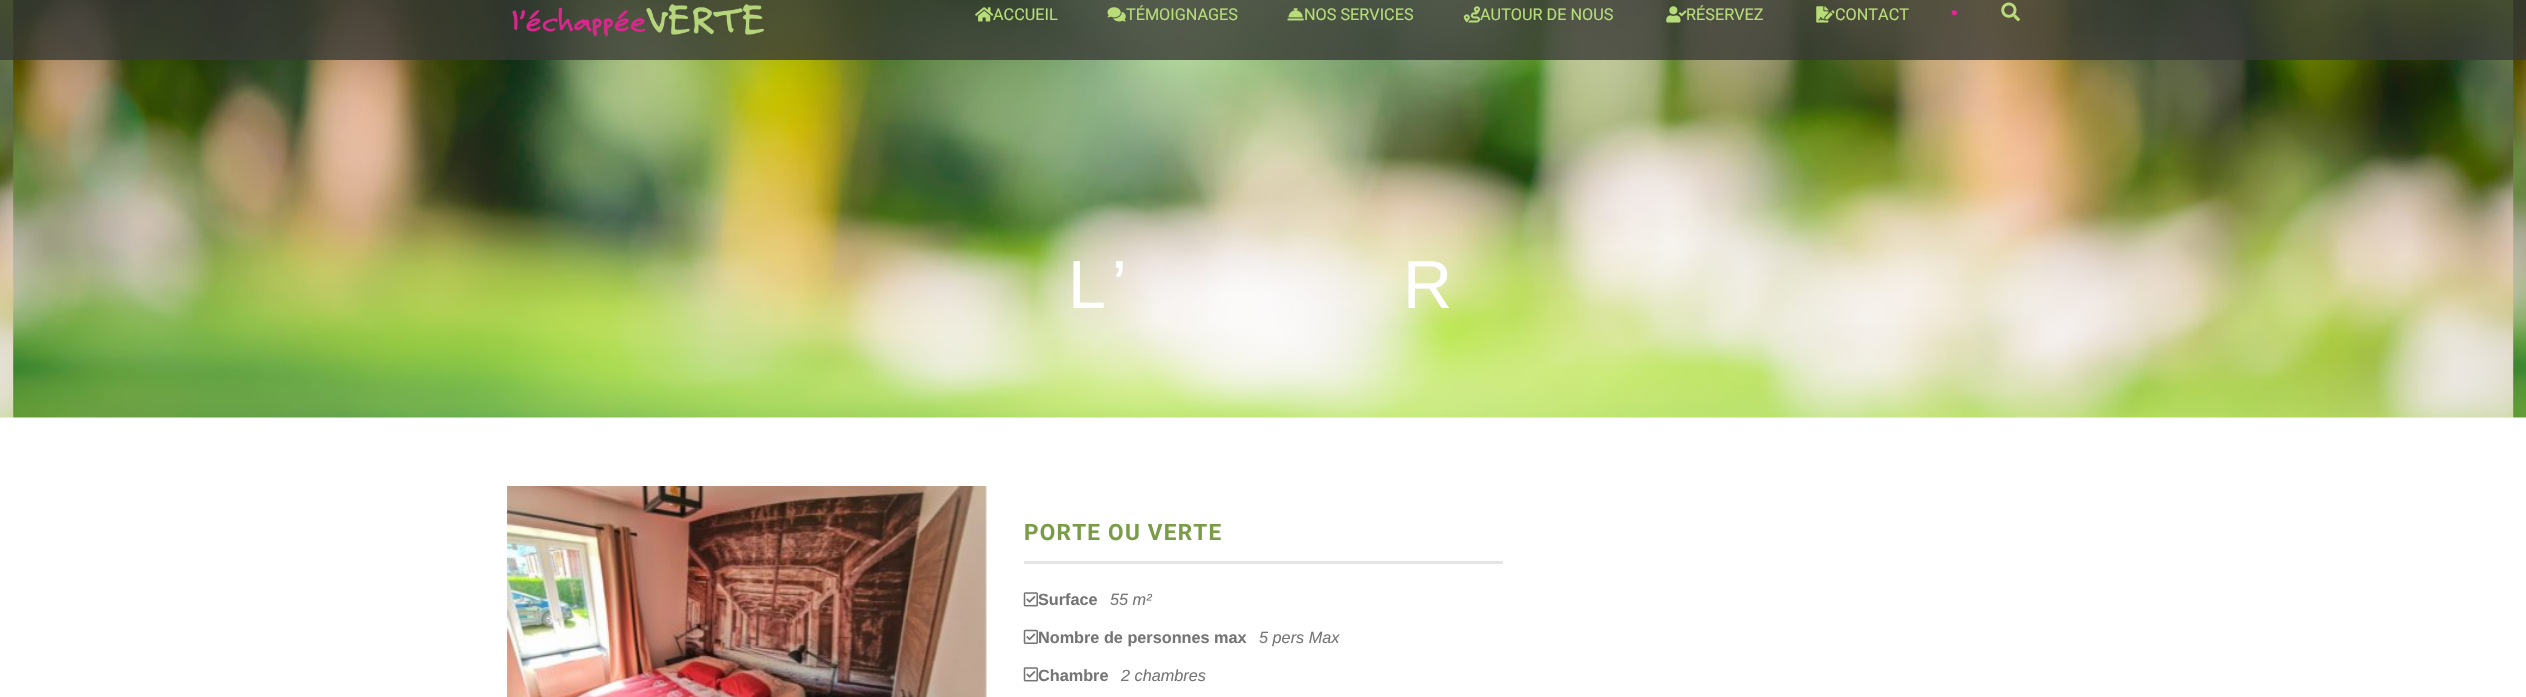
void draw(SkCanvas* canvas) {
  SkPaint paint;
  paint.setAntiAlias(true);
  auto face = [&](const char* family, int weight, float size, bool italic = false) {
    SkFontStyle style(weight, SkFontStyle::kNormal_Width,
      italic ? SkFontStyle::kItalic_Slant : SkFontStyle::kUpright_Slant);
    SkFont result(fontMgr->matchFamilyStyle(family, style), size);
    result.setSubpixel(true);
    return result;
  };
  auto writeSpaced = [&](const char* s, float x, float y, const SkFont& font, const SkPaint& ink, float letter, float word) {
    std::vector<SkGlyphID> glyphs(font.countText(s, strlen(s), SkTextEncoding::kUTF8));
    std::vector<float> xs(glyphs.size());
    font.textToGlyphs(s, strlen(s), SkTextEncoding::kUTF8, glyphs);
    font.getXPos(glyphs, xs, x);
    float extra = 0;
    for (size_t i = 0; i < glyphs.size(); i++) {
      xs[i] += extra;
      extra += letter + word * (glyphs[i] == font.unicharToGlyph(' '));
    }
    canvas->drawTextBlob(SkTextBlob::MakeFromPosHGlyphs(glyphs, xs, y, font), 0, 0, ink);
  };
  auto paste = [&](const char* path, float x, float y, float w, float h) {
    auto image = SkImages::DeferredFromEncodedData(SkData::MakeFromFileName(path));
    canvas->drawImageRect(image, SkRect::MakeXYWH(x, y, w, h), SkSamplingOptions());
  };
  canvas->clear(0xffffffff);
  paste("img/9.png", 0, 0, 2526, 418);
  paint.setColor(0xcc383a35);
  canvas->drawRect(SkRect::MakeXYWH(0, 0, 2526, 60), paint);
  paste("img/1.png", 512, 4, 252, 33);
  paste("img/3.png", 1107, 7, 19, 15);
  paste("img/4.png", 1287, 8, 17, 13);
  paste("img/5.png", 1463, 6, 17, 17);
  paste("img/6.png", 1666, 6, 21, 17);
  paste("img/7.png", 1816, 6, 19, 17);
  paste("img/8.png", 2001, 2, 19, 20);
  paste("img/10.png", 507, 486, 480, 211);
  paint.setColor(0xffe5e5e5);
  canvas->drawRect(SkRect::MakeXYWH(1024, 561, 479, 3), paint);
  paste("img/11.png", 1023, 592, 15, 15);
  paste("img/12.png", 1023, 629, 15, 15);
  paste("img/11.png", 1023, 667, 15, 15);
  auto f0 = face("Roboto", 400, 16.25f);
  paint.setColor(0xffb7dc78);
  canvas->drawString("ACCUEIL", 993, 20, f0, paint);
  paste("img/2.png", 975, 7, 19, 15);
  {
    const struct { const char* s; float x, y; } items[] = {
      {"TÉMOIGNAGES", 1126, 20},
      {"NOS SERVICES", 1304, 20},
      {"AUTOUR DE NOUS", 1480, 20},
      {"RÉSERVEZ", 1686, 20},
      {"CONTACT", 1835, 20},
    };
    for (auto [s, x, y] : items) {
      canvas->drawString(s, x, y, f0, paint);
    }
  }
  auto f1 = face("Liberation Sans", 400, 19);
  paint.setColor(0xffe72599);
  canvas->drawString("•", 1951, 19, f1, paint);
  auto f2 = face("Liberation Sans", 400, 68);
  paint.setColor(0xffffffff);
  writeSpaced("L’", 1068, 308, f2, paint, 6, 0);
  writeSpaced("R", 1403, 308, f2, paint, 6, 0);
  auto f3 = face("Roboto", 700, 22.5f);
  paint.setColor(0xff7a9c49);
  writeSpaced("PORTE OU VERTE", 1024, 540, f3, paint, 1.25f, 0);
  auto f4 = face("Liberation Sans", 700, 16.25f);
  paint.setColor(0xff757575);
  canvas->drawString("Surface", 1038, 605, f4, paint);
  auto f5 = face("Liberation Sans", 400, 16.25f, true);
  canvas->drawString("55 m²", 1110, 605, f5, paint);
  canvas->drawString("Nombre de personnes max", 1038, 643, f4, paint);
  canvas->drawString("5 pers Max", 1259, 643, f5, paint);
  canvas->drawString("Chambre", 1038, 681, f4, paint);
  canvas->drawString("2 chambres", 1121, 681, f5, paint);
}
